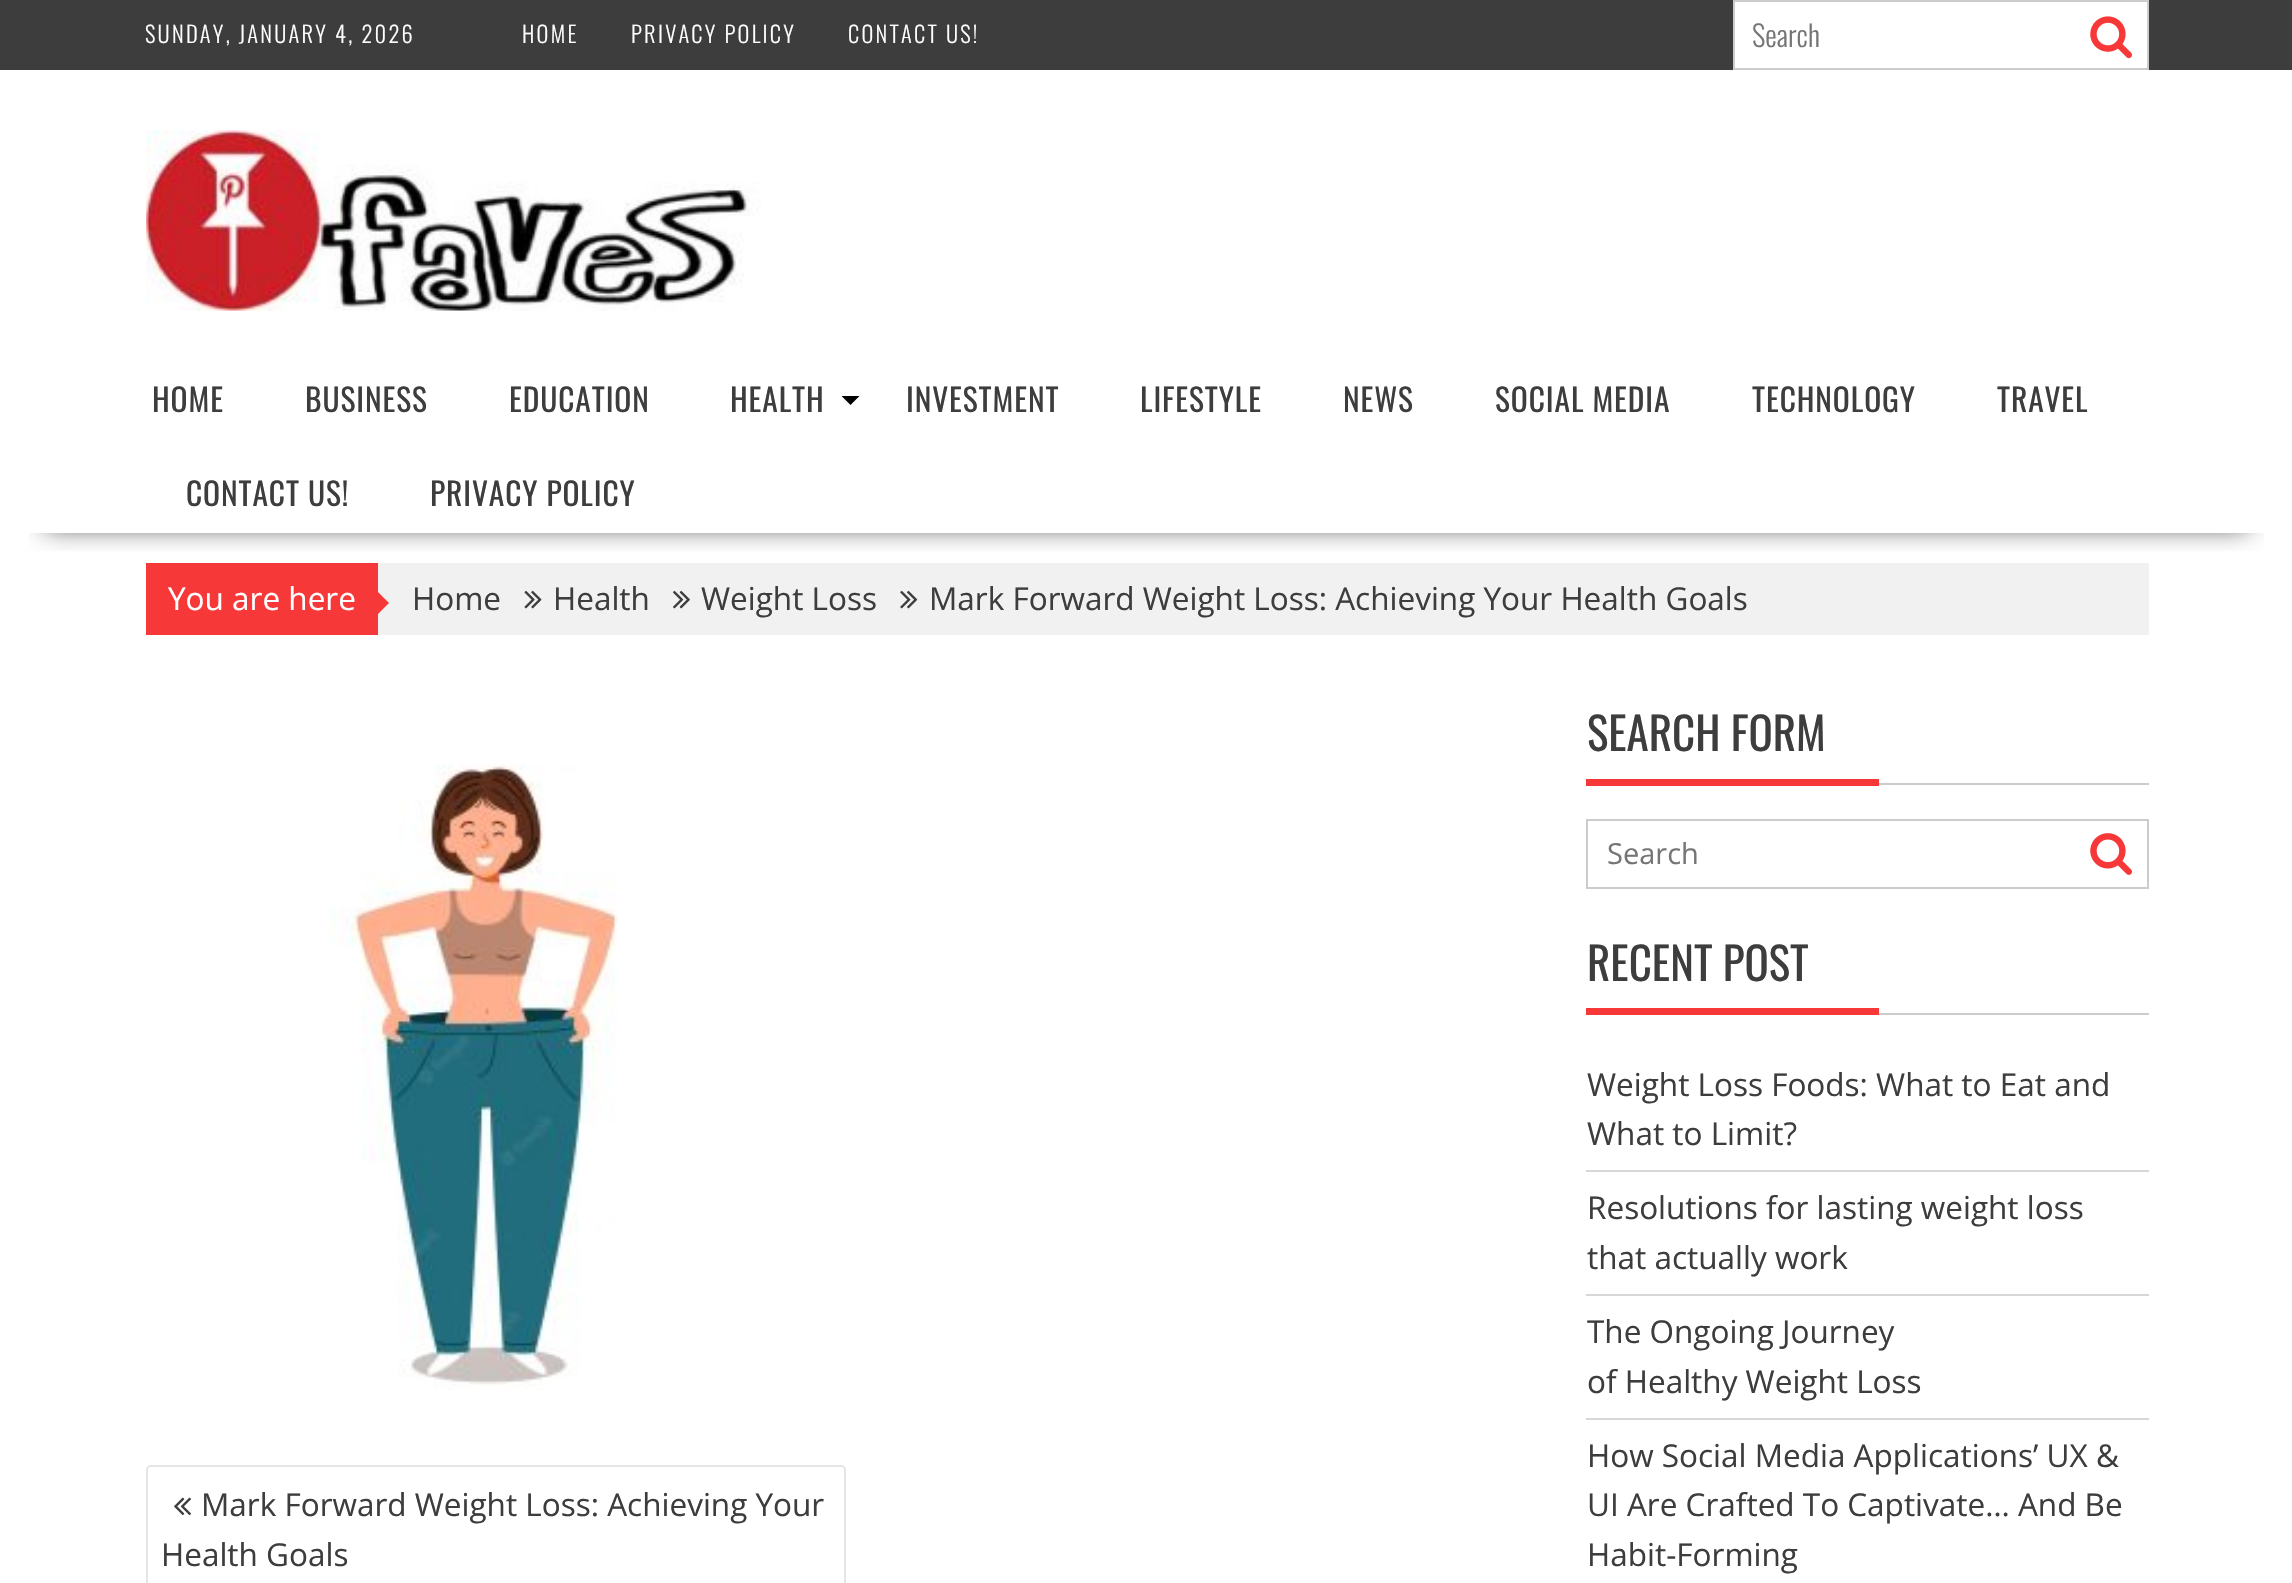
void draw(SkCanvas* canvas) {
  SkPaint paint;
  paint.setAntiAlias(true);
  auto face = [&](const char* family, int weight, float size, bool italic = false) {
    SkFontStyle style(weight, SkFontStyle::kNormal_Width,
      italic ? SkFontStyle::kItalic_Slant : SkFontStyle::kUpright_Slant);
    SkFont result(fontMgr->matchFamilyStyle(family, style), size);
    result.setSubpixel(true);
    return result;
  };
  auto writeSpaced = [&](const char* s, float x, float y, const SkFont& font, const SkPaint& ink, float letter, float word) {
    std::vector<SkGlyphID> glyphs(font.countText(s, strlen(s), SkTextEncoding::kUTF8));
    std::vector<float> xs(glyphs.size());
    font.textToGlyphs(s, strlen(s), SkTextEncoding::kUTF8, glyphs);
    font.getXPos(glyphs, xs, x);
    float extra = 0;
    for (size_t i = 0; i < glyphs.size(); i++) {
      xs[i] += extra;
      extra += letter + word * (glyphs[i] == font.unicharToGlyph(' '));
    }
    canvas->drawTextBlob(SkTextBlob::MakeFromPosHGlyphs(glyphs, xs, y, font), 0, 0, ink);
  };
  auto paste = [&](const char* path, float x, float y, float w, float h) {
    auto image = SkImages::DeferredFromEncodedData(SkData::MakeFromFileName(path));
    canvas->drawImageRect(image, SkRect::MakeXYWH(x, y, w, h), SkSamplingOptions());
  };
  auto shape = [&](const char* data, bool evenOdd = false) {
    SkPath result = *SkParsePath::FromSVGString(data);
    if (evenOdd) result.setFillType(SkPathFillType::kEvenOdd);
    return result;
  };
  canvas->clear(0xffffffff);
  paint.setColor(0xff3d3d3d);
  canvas->drawRect(SkRect::MakeXYWH(0, 0, 2292, 70), paint);
  paint.setColor(0xffffffff);
  canvas->drawRect(SkRect::MakeXYWH(1734, 1, 414, 68), paint);
  paint.setStroke(true);
  paint.setStrokeWidth(2);
  paint.setColor(0xffcccccc);
  canvas->drawRect(SkRect::MakeXYWH(1734, 1, 414, 68), paint);
  paste("img/1.png", 2090, 16, 42, 43);
  paste("img/2.png", 146, 130, 615, 181);
  paint.setStroke(false);
  paint.setColor(0xfff1f1f1);
  canvas->drawRect(SkRect::MakeXYWH(378, 563, 1771, 72), paint);
  canvas->save();
  canvas->clipRect(SkRect::MakeXYWH(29, 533, 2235, 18));
  paint.setColor(0xbf000000);
  paint.setMaskFilter(SkMaskFilter::MakeBlur(kNormal_SkBlurStyle, 12.5f));
  canvas->drawRect(SkRect::MakeXYWH(45, 428, 2203, 99), paint);
  paint.setMaskFilter(nullptr);
  canvas->restore();
  paint.setColor(0xff000000);
  canvas->drawPath(shape("M841.5 396H859.5L850.5 405Z"), paint);
  paint.setColor(0xfff73838);
  canvas->drawRect(SkRect::MakeXYWH(146, 563, 232, 72), paint);
  canvas->drawPath(shape("M378 614V592L389 603Z"), paint);
  paste("img/3.png", 524, 590, 18, 19);
  paste("img/4.png", 673, 590, 17, 19);
  paste("img/5.png", 900, 590, 18, 19);
  paste("img/6.png", 327, 764, 291, 626);
  paint.setStroke(true);
  paint.setColor(0xffe5e5e5);
  canvas->drawRoundRect(SkRect::MakeXYWH(147, 1466, 698, 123), 4, 4, paint);
  paste("img/7.png", 174, 1497, 17, 19);
  paint.setStroke(false);
  paint.setColor(0xffcccccc);
  canvas->drawRect(SkRect::MakeXYWH(1879, 783, 270, 2), paint);
  paint.setColor(0xfff73838);
  canvas->drawRect(SkRect::MakeXYWH(1586, 779, 293, 7), paint);
  paint.setStroke(true);
  paint.setColor(0xffcccccc);
  canvas->drawRect(SkRect::MakeXYWH(1587, 820, 561, 68), paint);
  paste("img/8.png", 2090, 833, 42, 42);
  paint.setStroke(false);
  {
    const struct { float x, y, w, h; SkColor color; } items[] = {
      {1879, 1013, 270, 2, 0xffcccccc},
      {1586, 1008, 293, 7, 0xfff73838},
      {1586, 1170, 563, 2, 0xffd7d7d7},
      {1586, 1294, 563, 2, 0xffd7d7d7},
      {1586, 1418, 563, 2, 0xffd7d7d7},
    };
    for (auto [x, y, w, h, color] : items) {
      paint.setColor(color);
      canvas->drawRect(SkRect::MakeXYWH(x, y, w, h), paint);
    }
  }
  auto f0 = face("Oswald", 300, 22.5f);
  paint.setColor(0xffffffff);
  {
    const struct { const char* s; float x, y; } items[] = {
      {"SUNDAY, JANUARY 4, 2026", 145, 43},
      {"HOME", 522, 43},
      {"PRIVACY POLICY", 631, 43},
      {"CONTACT US!", 848, 43},
    };
    for (auto [s, x, y] : items) {
      writeSpaced(s, x, y, f0, paint, 2.25f, 0);
    }
  }
  canvas->save();
  canvas->clipRect(SkRect::MakeXYWH(1753, 11, 342, 45));
  auto f1 = face("Oswald", 300, 29);
  paint.setColor(0xff757575);
  canvas->drawString("Search", 1752, 47, f1, paint);
  canvas->restore();
  auto f2 = face("Oswald", 400, 31.5f);
  paint.setColor(0xff3d3d3d);
  {
    const struct { const char* s; float x, y; } items[] = {
      {"HOME", 152, 412},
      {"BUSINESS", 305, 412},
      {"EDUCATION", 509, 412},
      {"HEALTH", 730, 412},
      {"INVESTMENT", 906, 412},
      {"LIFESTYLE", 1140, 412},
      {"NEWS", 1343, 412},
      {"SOCIAL MEDIA", 1495, 412},
      {"TECHNOLOGY", 1752, 412},
      {"TRAVEL", 1997, 412},
      {"CONTACT US!", 186, 506},
      {"PRIVACY POLICY", 430, 506},
    };
    for (auto [s, x, y] : items) {
      writeSpaced(s, x, y, f2, paint, 0.9f, 0);
    }
  }
  auto f3 = face("Open Sans", 400, 31.5f);
  paint.setColor(0xffffffff);
  canvas->drawString("You are here", 168, 610, f3, paint);
  paint.setColor(0xff3d3d3d);
  {
    const struct { const char* s; float x, y; } items[] = {
      {"Home", 412, 610},
      {"Health", 553, 610},
      {"Weight Loss", 701, 610},
      {"Mark Forward Weight Loss: Achieving Your Health Goals", 929, 610},
      {"Mark Forward Weight Loss: Achieving Your", 201, 1516},
      {"Health Goals", 161, 1566},
    };
    for (auto [s, x, y] : items) {
      canvas->drawString(s, x, y, f3, paint);
    }
  }
  auto f4 = face("Oswald", 400, 45);
  canvas->drawString("SEARCH FORM", 1587, 751, f4, paint);
  auto f5 = face("Open Sans", 400, 29);
  paint.setColor(0xff757575);
  canvas->drawString("Search", 1607, 864, f5, paint);
  paint.setColor(0xff3d3d3d);
  canvas->drawString("RECENT POST", 1587, 981, f4, paint);
  {
    const struct { const char* s; float x, y; } items[] = {
      {"Weight Loss Foods: What to Eat and", 1587, 1096},
      {"What to Limit?", 1587, 1145},
      {"Resolutions for lasting weight loss", 1587, 1219},
      {"that actually work", 1587, 1269},
      {"The Ongoing Journey", 1587, 1343},
      {"of Healthy Weight Loss", 1587, 1393},
      {"How Social Media Applications’ UX &", 1587, 1467},
      {"UI Are Crafted To Captivate… And Be", 1587, 1516},
      {"Habit-Forming", 1587, 1566},
    };
    for (auto [s, x, y] : items) {
      canvas->drawString(s, x, y, f3, paint);
    }
  }
}
